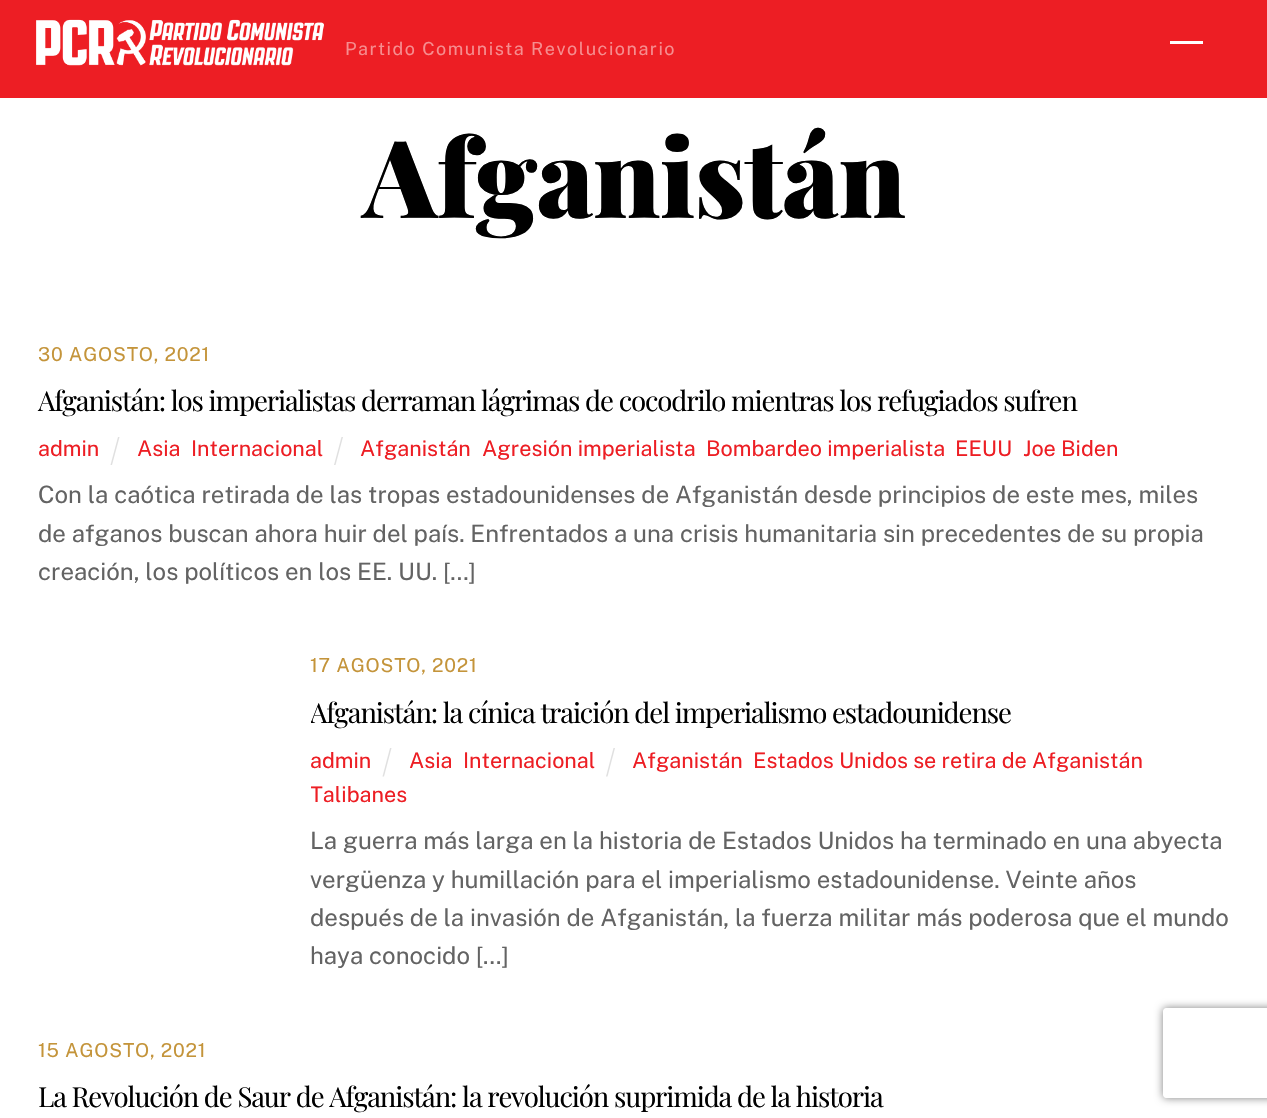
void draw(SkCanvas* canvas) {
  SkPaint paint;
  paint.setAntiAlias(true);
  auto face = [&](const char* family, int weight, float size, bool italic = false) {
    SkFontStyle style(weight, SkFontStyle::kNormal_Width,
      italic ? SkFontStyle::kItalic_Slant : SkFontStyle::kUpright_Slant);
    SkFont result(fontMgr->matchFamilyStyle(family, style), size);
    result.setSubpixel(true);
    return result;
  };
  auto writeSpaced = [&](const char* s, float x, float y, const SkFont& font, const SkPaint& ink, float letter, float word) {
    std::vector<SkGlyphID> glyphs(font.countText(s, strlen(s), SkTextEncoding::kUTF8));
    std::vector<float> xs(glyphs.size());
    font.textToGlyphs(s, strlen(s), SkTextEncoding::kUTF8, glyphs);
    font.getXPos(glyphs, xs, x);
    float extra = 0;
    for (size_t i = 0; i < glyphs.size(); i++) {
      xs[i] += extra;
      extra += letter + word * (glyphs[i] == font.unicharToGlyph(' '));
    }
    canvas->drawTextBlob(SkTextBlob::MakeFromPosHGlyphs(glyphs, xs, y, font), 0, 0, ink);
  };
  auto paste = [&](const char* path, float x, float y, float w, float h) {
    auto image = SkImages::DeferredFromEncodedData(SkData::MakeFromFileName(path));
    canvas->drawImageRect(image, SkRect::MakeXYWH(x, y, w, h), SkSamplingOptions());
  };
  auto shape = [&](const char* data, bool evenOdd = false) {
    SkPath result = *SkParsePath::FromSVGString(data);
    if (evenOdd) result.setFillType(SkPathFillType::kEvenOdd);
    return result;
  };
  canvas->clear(0xffffffff);
  paint.setColor(0xffed1e24);
  canvas->drawRect(SkRect::MakeXYWH(0, 0, 1267, 98), paint);
  paste("img/1.png", 36, 19, 288, 47);
  paint.setColor(0xffffffff);
  canvas->drawRect(SkRect::MakeXYWH(1170, 41, 33, 3), paint);
  paint.setColor(0xffe0e0e0);
  canvas->drawPath(shape("M118 437H119.5L112 465H110.5Z"), paint);
  canvas->drawPath(shape("M341.5 437H343L335.5 465H334Z"), paint);
  canvas->drawPath(shape("M613.5 748H615L607.5 776.5H606Z"), paint);
  canvas->drawPath(shape("M390 748H391.5L384 776.5H382.5Z"), paint);
  canvas->save();
  canvas->clipPath(shape("M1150 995H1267V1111H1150ZM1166 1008H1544C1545.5 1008 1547 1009.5 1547 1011V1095C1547 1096.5 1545.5 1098 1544 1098H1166C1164.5 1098 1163 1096.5 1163 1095V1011C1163 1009.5 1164.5 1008 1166 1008Z", true), true);
  paint.setColor(0xff808080);
  paint.setMaskFilter(SkMaskFilter::MakeBlur(kNormal_SkBlurStyle, 4));
  canvas->drawRoundRect(SkRect::MakeXYWH(1163, 1008, 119, 90), 3, 3, paint);
  paint.setMaskFilter(nullptr);
  canvas->restore();
  auto f0 = face("Public Sans", 400, 18);
  paint.setColor(0xfff68d8f);
  writeSpaced("Partido Comunista Revolucionario", 345, 55, f0, paint, 1.5f, 0);
  auto f1 = face("Playfair Display", 900, 108);
  paint.setColor(0xff000000);
  writeSpaced("Afganistán", 363, 218, f1, paint, -0.75f, 0);
  auto f2 = face("Public Sans", 400, 19.25f);
  paint.setColor(0xffc4943a);
  writeSpaced("30 AGOSTO, 2021", 38, 361, f2, paint, 0.75f, 0);
  auto f3 = face("Playfair Display", 400, 27.6f);
  paint.setColor(0xff000000);
  writeSpaced("Afganistán: los imperialistas derraman lágrimas de cocodrilo mientras los refugiados sufren", 38, 411, f3, paint, -1.1f, 0);
  auto f4 = face("Public Sans", 400, 21.6f);
  paint.setColor(0xffed1e24);
  {
    const struct { const char* s; float x, y; } items[] = {
      {"admin", 38, 456},
      {"Asia", 137, 456},
      {"Internacional", 191, 456},
      {"Afganistán", 360, 456},
      {"Agresión imperialista", 482, 456},
      {"Bombardeo imperialista", 706, 456},
      {"EEUU", 955, 456},
      {"Joe Biden", 1023, 456},
    };
    for (auto [s, x, y] : items) {
      canvas->drawString(s, x, y, f4, paint);
    }
  }
  auto f5 = face("Public Sans", 400, 24);
  paint.setColor(0xff636363);
  {
    const struct { const char* s; float x, y; } items[] = {
      {"Con la caótica retirada de las tropas estadounidenses de Afganistán desde principios de este mes, miles", 38, 503},
      {"de afganos buscan ahora huir del país. Enfrentados a una crisis humanitaria sin precedentes de su propia", 38, 542},
      {"creación, los políticos en los EE. UU. […]", 38, 580},
    };
    for (auto [s, x, y] : items) {
      canvas->drawString(s, x, y, f5, paint);
    }
  }
  paint.setColor(0xffc4943a);
  writeSpaced("17 AGOSTO, 2021", 310, 672, f2, paint, 0.75f, 0);
  canvas->save();
  canvas->clipRect(SkRect::MakeXYWH(311, 647, 919, 360));
  paint.setColor(0xff000000);
  writeSpaced("Afganistán: la cínica traición del imperialismo estadounidense", 310, 723, f3, paint, -1.1f, 0);
  canvas->restore();
  paint.setColor(0xffed1e24);
  {
    const struct { const char* s; float x, y; } items[] = {
      {"admin", 310, 768},
      {"Afganistán", 632, 768},
      {"Estados Unidos se retira de Afganistán", 753, 768},
    };
    for (auto [s, x, y] : items) {
      canvas->drawString(s, x, y, f4, paint);
    }
  }
  canvas->save();
  canvas->clipRect(SkRect::MakeXYWH(311, 647, 919, 360));
  canvas->drawString("Talibanes", 310, 802, f4, paint);
  canvas->restore();
  canvas->drawString("Asia", 409, 768, f4, paint);
  canvas->drawString("Internacional", 463, 768, f4, paint);
  paint.setColor(0xff636363);
  {
    const struct { const char* s; float x, y; } items[] = {
      {"La guerra más larga en la historia de Estados Unidos ha terminado en una abyecta", 310, 849},
      {"vergüenza y humillación para el imperialismo estadounidense. Veinte años", 310, 888},
      {"después de la invasión de Afganistán, la fuerza militar más poderosa que el mundo", 310, 926},
      {"haya conocido […]", 310, 964},
    };
    for (auto [s, x, y] : items) {
      canvas->drawString(s, x, y, f5, paint);
    }
  }
  paint.setColor(0xffc4943a);
  writeSpaced("15 AGOSTO, 2021", 38, 1057, f2, paint, 0.75f, 0);
  paint.setColor(0xff000000);
  writeSpaced("La Revolución de Saur de Afganistán: la revolución suprimida de la historia", 38, 1107, f3, paint, -1.1f, 0);
}
